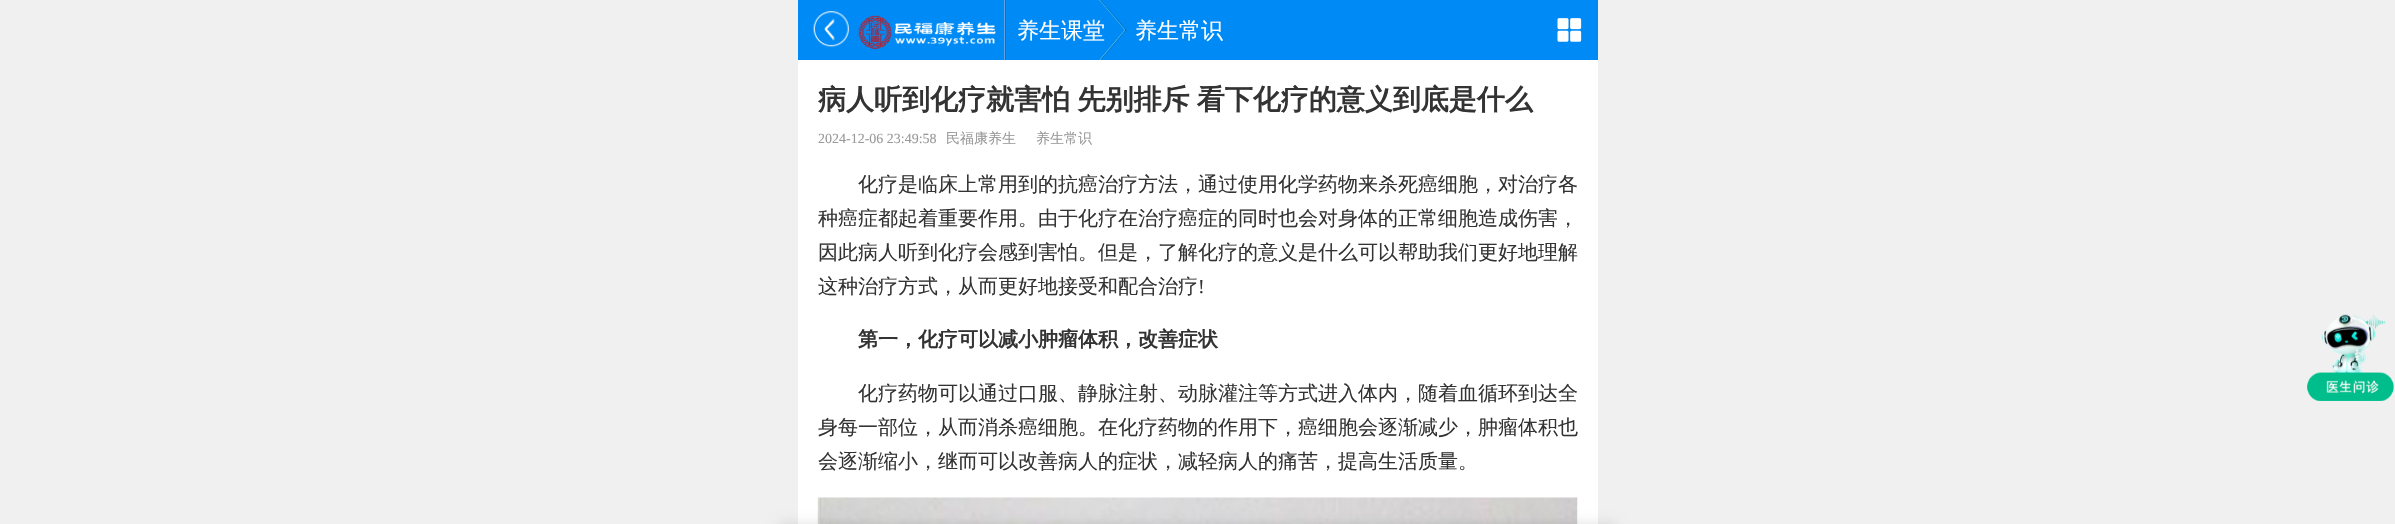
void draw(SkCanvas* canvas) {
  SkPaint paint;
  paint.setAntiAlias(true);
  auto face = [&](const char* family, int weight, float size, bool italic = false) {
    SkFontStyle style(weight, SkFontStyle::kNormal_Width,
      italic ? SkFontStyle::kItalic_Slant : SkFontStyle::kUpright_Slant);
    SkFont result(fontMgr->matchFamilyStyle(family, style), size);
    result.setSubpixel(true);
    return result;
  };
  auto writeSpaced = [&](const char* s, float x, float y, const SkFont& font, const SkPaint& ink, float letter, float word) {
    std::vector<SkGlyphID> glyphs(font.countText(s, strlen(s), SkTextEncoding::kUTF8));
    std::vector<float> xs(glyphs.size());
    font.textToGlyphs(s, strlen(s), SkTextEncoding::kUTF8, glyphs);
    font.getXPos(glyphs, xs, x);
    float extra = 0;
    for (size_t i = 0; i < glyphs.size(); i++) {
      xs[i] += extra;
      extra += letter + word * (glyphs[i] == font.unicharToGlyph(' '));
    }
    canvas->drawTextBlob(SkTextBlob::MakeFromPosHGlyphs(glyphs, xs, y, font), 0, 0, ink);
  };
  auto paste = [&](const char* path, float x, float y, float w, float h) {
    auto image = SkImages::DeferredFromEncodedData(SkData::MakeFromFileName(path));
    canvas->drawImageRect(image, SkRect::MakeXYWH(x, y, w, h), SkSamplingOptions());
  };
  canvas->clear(0xfff0f0f0);
  paint.setColor(0xff008af5);
  canvas->drawRect(SkRect::MakeXYWH(798, 0, 800, 60), paint);
  paste("img/1.png", 813, 11, 36, 36);
  paint.setColor(0xff61a0e1);
  canvas->drawRect(SkRect::MakeXYWH(1004, 0, 1, 60), paint);
  paste("img/2.png", 858, 15, 138, 34);
  paint.setColor(0xff0177d3);
  canvas->drawRect(SkRect::MakeXYWH(1005, 0, 1, 60), paint);
  paste("img/4.png", 1557, 18, 25, 24);
  paint.setColor(0xffffffff);
  canvas->drawRect(SkRect::MakeXYWH(798, 60, 800, 464), paint);
  paste("img/5.png", 817, 497, 761, 27);
  paste("img/6.png", 2307, 311, 87, 90);
  paint.setColor(0x1a000000);
  paint.setMaskFilter(SkMaskFilter::MakeBlur(kNormal_SkBlurStyle, 6));
  canvas->drawRect(SkRect::MakeXYWH(779, 523, 837, 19), paint);
  paint.setMaskFilter(nullptr);
  auto f0 = face("WenQuanYi Zen Hei", 500, 22);
  paint.setColor(0xffffffff);
  canvas->drawString("养生课堂", 1017, 38, f0, paint);
  paste("img/3.png", 1099, 0, 28, 60);
  canvas->drawString("养生常识", 1135, 38, f0, paint);
  auto f1 = face("WenQuanYi Zen Hei", 700, 28);
  paint.setColor(0xff333333);
  writeSpaced("病人听到化疗就害怕 先别排斥 看下化疗的意义到底是什么", 818, 109, f1, paint, 0, -1);
  auto f2 = face("Liberation Serif", 400, 14);
  paint.setColor(0xff999999);
  canvas->drawString("2024-12-06 23:49:58", 818, 143, f2, paint);
  auto f3 = face("WenQuanYi Zen Hei", 500, 14);
  canvas->drawString("民福康养生", 946, 143, f3, paint);
  canvas->drawString("养生常识", 1036, 143, f3, paint);
  auto f4 = face("WenQuanYi Zen Hei", 500, 20);
  paint.setColor(0xff333333);
  {
    const struct { const char* s; float x, y; } items[] = {
      {"化疗是临床上常用到的抗癌治疗方法，通过使用化学药物来杀死癌细胞，对治疗各", 858, 191},
      {"种癌症都起着重要作用。由于化疗在治疗癌症的同时也会对身体的正常细胞造成伤害，", 818, 225},
      {"因此病人听到化疗会感到害怕。但是，了解化疗的意义是什么可以帮助我们更好地理解", 818, 259},
      {"这种治疗方式，从而更好地接受和配合治疗", 818, 293},
    };
    for (auto [s, x, y] : items) {
      canvas->drawString(s, x, y, f4, paint);
    }
  }
  auto f5 = face("Liberation Serif", 400, 20);
  canvas->drawString("!", 1198, 293, f5, paint);
  auto f6 = face("WenQuanYi Zen Hei", 700, 20);
  canvas->drawString("第一，化疗可以减小肿瘤体积，改善症状", 858, 346, f6, paint);
  {
    const struct { const char* s; float x, y; } items[] = {
      {"化疗药物可以通过口服、静脉注射、动脉灌注等方式进入体内，随着血循环到达全", 858, 400},
      {"身每一部位，从而消杀癌细胞。在化疗药物的作用下，癌细胞会逐渐减少，肿瘤体积也", 818, 434},
      {"会逐渐缩小，继而可以改善病人的症状，减轻病人的痛苦，提高生活质量。", 818, 468},
    };
    for (auto [s, x, y] : items) {
      canvas->drawString(s, x, y, f4, paint);
    }
  }
}
